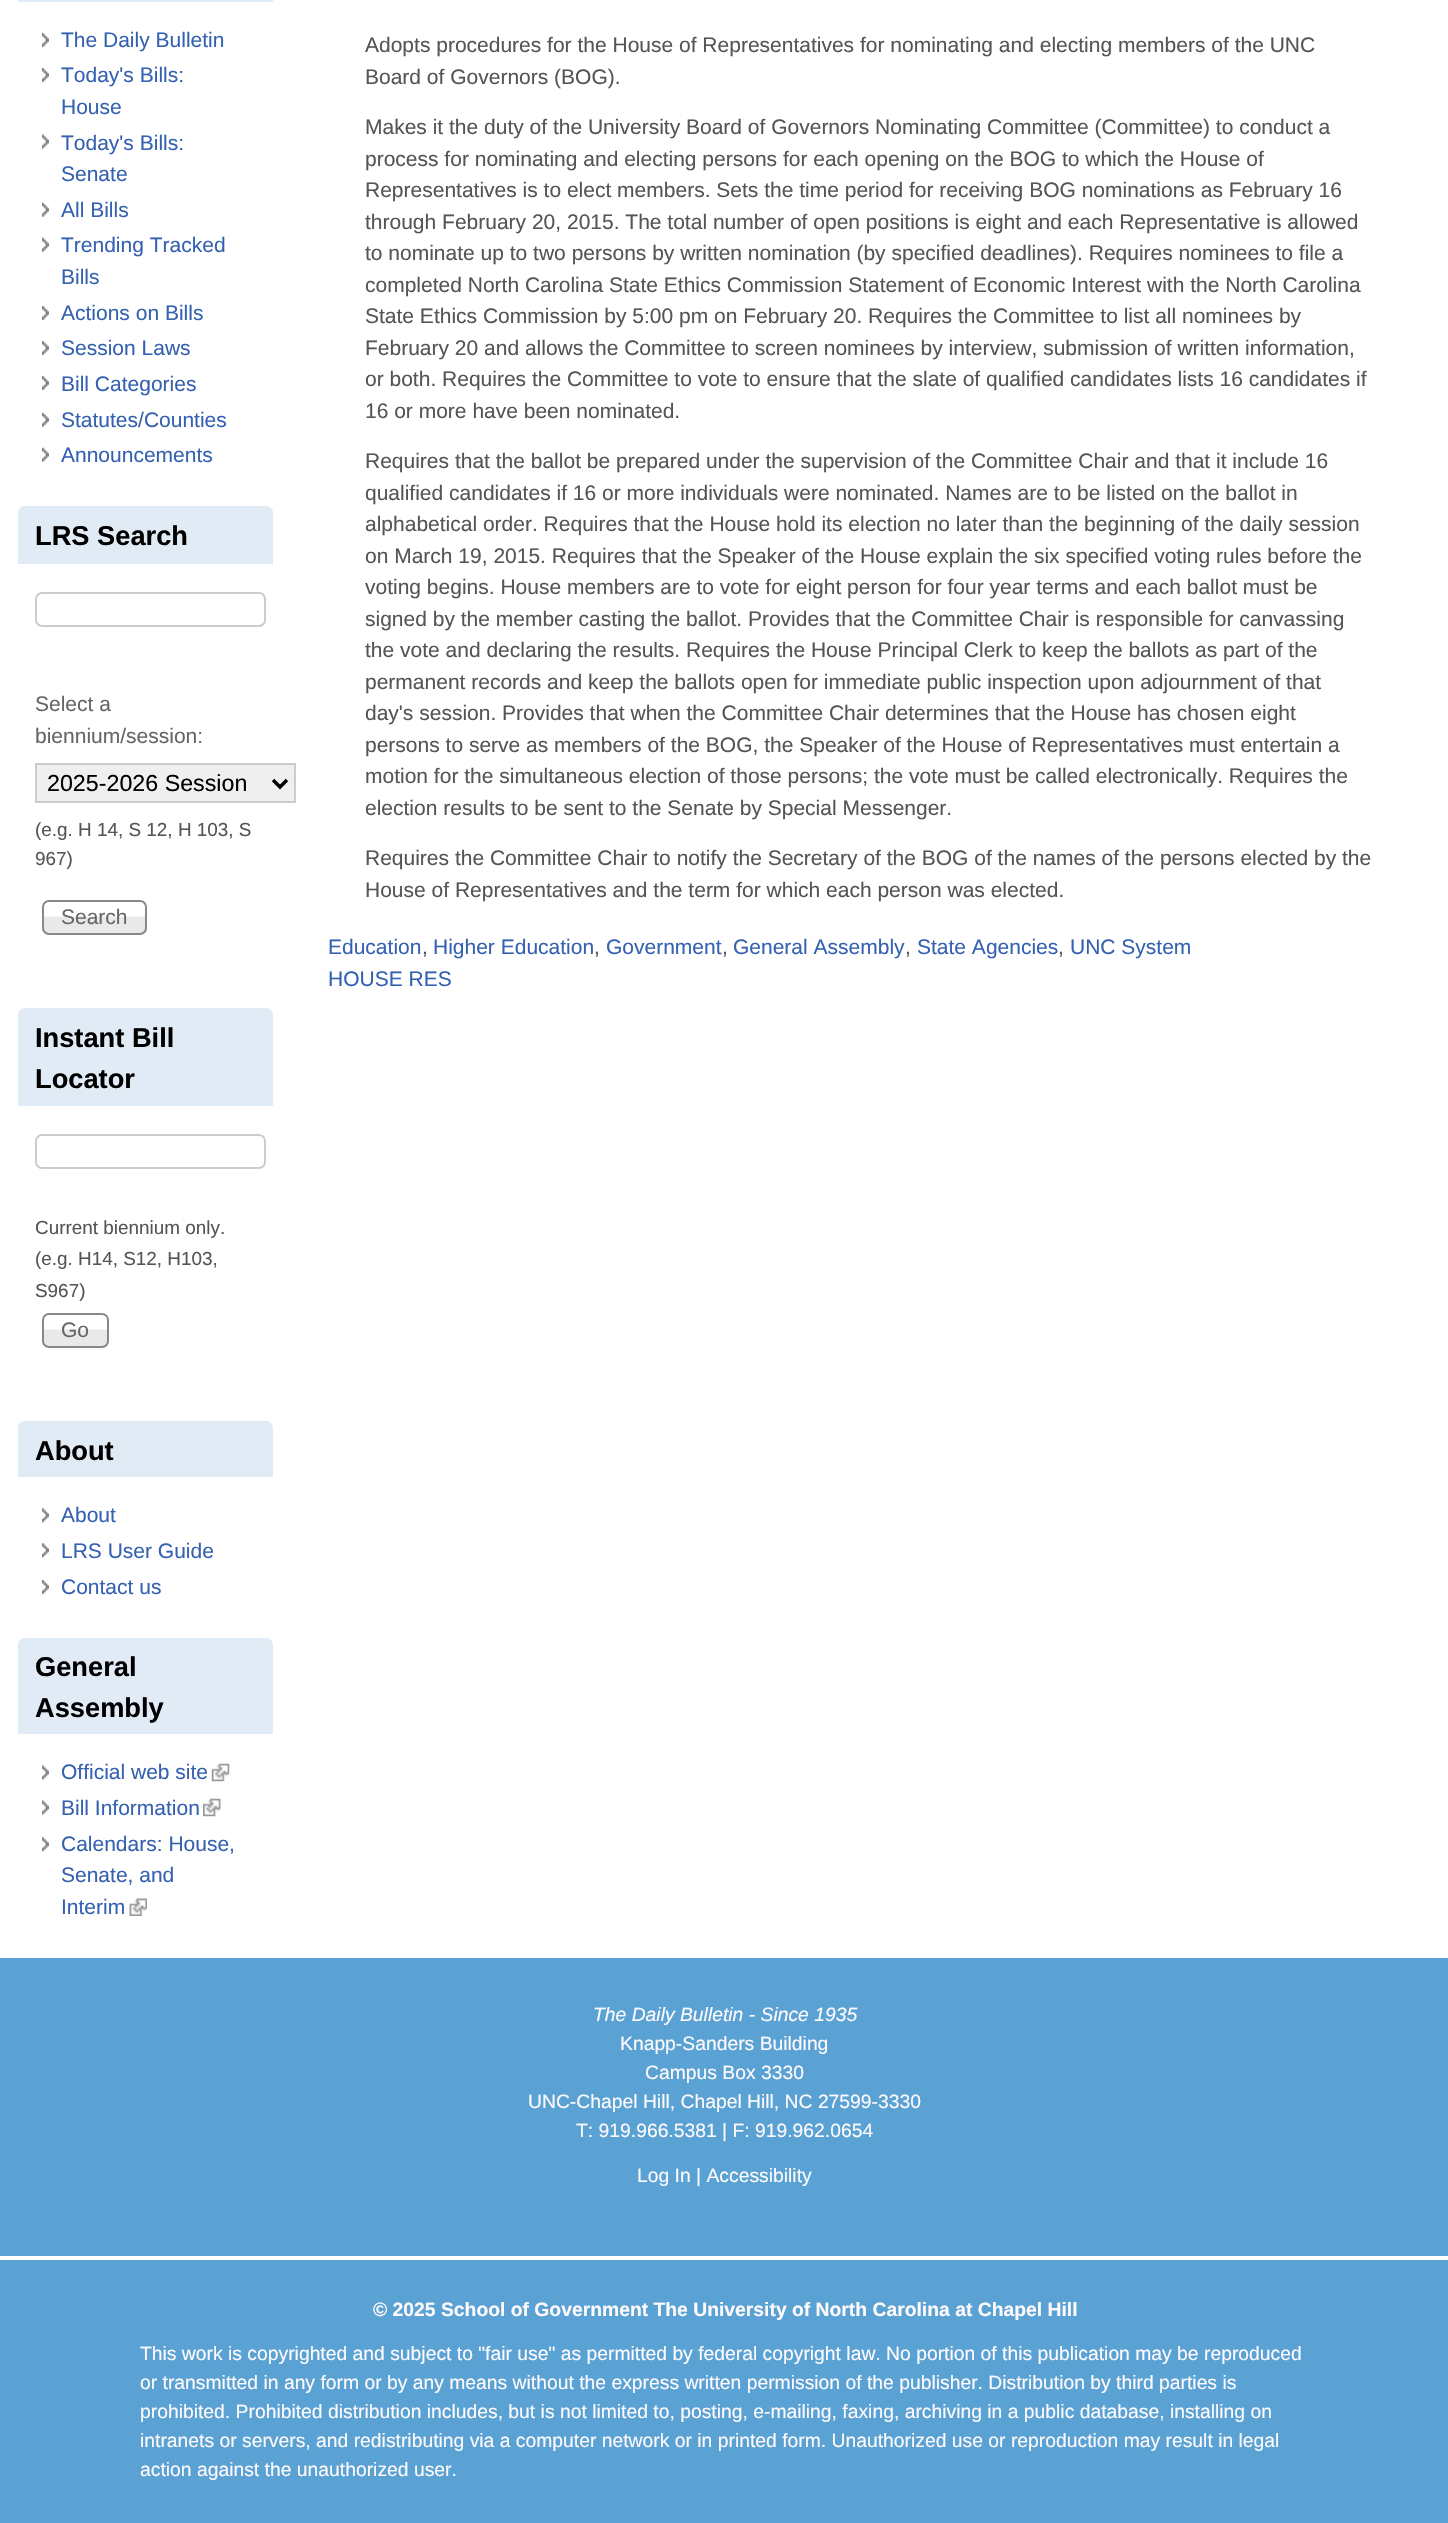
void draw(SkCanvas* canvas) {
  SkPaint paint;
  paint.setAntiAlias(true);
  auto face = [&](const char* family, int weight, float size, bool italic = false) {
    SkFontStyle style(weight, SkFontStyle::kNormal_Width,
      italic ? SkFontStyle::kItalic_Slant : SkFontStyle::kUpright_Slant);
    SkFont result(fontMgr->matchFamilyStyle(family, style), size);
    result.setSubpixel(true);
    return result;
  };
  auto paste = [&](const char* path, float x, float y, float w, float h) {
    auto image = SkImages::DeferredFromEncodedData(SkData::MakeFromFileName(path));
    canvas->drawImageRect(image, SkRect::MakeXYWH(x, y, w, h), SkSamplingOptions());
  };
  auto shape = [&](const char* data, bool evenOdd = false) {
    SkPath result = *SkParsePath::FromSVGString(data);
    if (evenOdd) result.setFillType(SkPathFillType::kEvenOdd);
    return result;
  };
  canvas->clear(0xffffffff);
  paint.setColor(0xffe1ebf5);
  canvas->drawRect(SkRect::MakeXYWH(18, 0, 255, 2), paint);
  paste("img/1.png", 42, 33, 7, 14);
  paste("img/1.png", 42, 68, 7, 14);
  paste("img/2.png", 42, 134, 7, 15);
  paste("img/3.png", 42, 202, 7, 15);
  paste("img/3.png", 42, 237, 7, 15);
  paste("img/1.png", 42, 306, 7, 14);
  paste("img/1.png", 42, 341, 7, 14);
  paste("img/1.png", 42, 376, 7, 14);
  paste("img/3.png", 42, 412, 7, 15);
  paste("img/3.png", 42, 447, 7, 15);
  canvas->drawPath(shape("M25 506H266C270 506 273 509 273 513V564H18V513C18 509 21 506 25 506Z"), paint);
  paint.setStroke(true);
  paint.setStrokeWidth(2);
  paint.setColor(0xffcccccc);
  canvas->drawRoundRect(SkRect::MakeXYWH(36, 593, 229, 33), 6, 6, paint);
  paint.setStroke(false);
  paint.setColor(0xffefefef);
  canvas->drawRect(SkRect::MakeXYWH(36, 764, 259, 38), paint);
  paint.setStroke(true);
  paint.setColor(0xffcccccc);
  canvas->drawRect(SkRect::MakeXYWH(36, 764, 259, 38), paint);
  paint.setStrokeWidth(3.5f);
  paint.setColor(0xff000000);
  canvas->drawPath(shape("M273 780L280 787L287 780"), paint);
  paste("img/4.png", 42, 916, 105, 18);
  paint.setStrokeWidth(2);
  paint.setColor(0xff888888);
  canvas->drawRoundRect(SkRect::MakeXYWH(43, 901, 103, 33), 6, 6, paint);
  paint.setStroke(false);
  paint.setColor(0xffe1ebf5);
  canvas->drawPath(shape("M25 1008H266C270 1008 273 1011 273 1015V1106H18V1015C18 1011 21 1008 25 1008Z"), paint);
  paint.setStroke(true);
  paint.setColor(0xffcccccc);
  canvas->drawRoundRect(SkRect::MakeXYWH(36, 1135, 229, 33), 6, 6, paint);
  paste("img/5.png", 42, 1329, 67, 18);
  paint.setColor(0xff888888);
  canvas->drawRoundRect(SkRect::MakeXYWH(43, 1314, 65, 33), 6, 6, paint);
  paint.setStroke(false);
  paint.setColor(0xffe1ebf5);
  canvas->drawPath(shape("M25 1421H266C270 1421 273 1424 273 1428V1477H18V1428C18 1424 21 1421 25 1421Z"), paint);
  paste("img/6.png", 42, 1508, 7, 15);
  paste("img/6.png", 42, 1543, 7, 15);
  paste("img/1.png", 42, 1580, 7, 14);
  canvas->drawPath(shape("M25 1638H266C270 1638 273 1641 273 1645V1734H18V1645C18 1641 21 1638 25 1638Z"), paint);
  paste("img/2.png", 42, 1765, 7, 15);
  paste("img/7.png", 211, 1763, 19, 19);
  paste("img/2.png", 42, 1800, 7, 15);
  paste("img/8.png", 203, 1798, 18, 19);
  paste("img/6.png", 42, 1837, 7, 15);
  paste("img/9.png", 129, 1898, 18, 18);
  paint.setColor(0xff59a2d3);
  canvas->drawRect(SkRect::MakeXYWH(0, 1958, 1448, 565), paint);
  paint.setColor(0xffffffff);
  canvas->drawRect(SkRect::MakeXYWH(0, 2256, 1448, 4), paint);
  auto f0 = face("Liberation Sans", 400, 21);
  paint.setColor(0xff3561b1);
  {
    const struct { const char* s; float x, y; } items[] = {
      {"The Daily Bulletin", 61, 47},
      {"Today's Bills:", 61, 82},
      {"House", 61, 114},
      {"Today's Bills:", 61, 150},
      {"Senate", 61, 181},
      {"All Bills", 61, 217},
      {"Trending Tracked", 61, 252},
      {"Bills", 61, 284},
      {"Actions on Bills", 61, 320},
      {"Session Laws", 61, 355},
      {"Bill Categories", 61, 391},
      {"Statutes/Counties", 61, 427},
      {"Announcements", 61, 462},
    };
    for (auto [s, x, y] : items) {
      canvas->drawString(s, x, y, f0, paint);
    }
  }
  auto f1 = face("Liberation Sans", 700, 27.25f);
  paint.setColor(0xff000000);
  canvas->drawString("LRS Search", 35, 545, f1, paint);
  paint.setColor(0xff666666);
  canvas->drawString("Select a", 35, 711, f0, paint);
  canvas->drawString("biennium/session:", 35, 743, f0, paint);
  auto f2 = face("Liberation Sans", 400, 23.25f);
  paint.setColor(0xff000000);
  canvas->drawString("2025-2026 Session", 47, 791, f2, paint);
  auto f3 = face("Liberation Sans", 400, 18.9f);
  paint.setColor(0xff555555);
  canvas->drawString("(e.g. H 14, S 12, H 103, S", 35, 836, f3, paint);
  canvas->drawString("967)", 35, 865, f3, paint);
  paint.setColor(0xff666666);
  canvas->drawString("Search", 61, 924, f0, paint);
  paint.setColor(0xff000000);
  canvas->drawString("Instant Bill", 35, 1047, f1, paint);
  canvas->drawString("Locator", 35, 1088, f1, paint);
  paint.setColor(0xff555555);
  {
    const struct { const char* s; float x, y; } items[] = {
      {"Current biennium only.", 35, 1234},
      {"(e.g. H14, S12, H103,", 35, 1265},
      {"S967)", 35, 1297},
    };
    for (auto [s, x, y] : items) {
      canvas->drawString(s, x, y, f3, paint);
    }
  }
  paint.setColor(0xff666666);
  canvas->drawString("Go", 61, 1337, f0, paint);
  paint.setColor(0xff000000);
  canvas->drawString("About", 35, 1460, f1, paint);
  paint.setColor(0xff3561b1);
  {
    const struct { const char* s; float x, y; } items[] = {
      {"About", 61, 1522},
      {"LRS User Guide", 61, 1558},
      {"Contact us", 61, 1594},
    };
    for (auto [s, x, y] : items) {
      canvas->drawString(s, x, y, f0, paint);
    }
  }
  paint.setColor(0xff000000);
  canvas->drawString("General", 35, 1676, f1, paint);
  canvas->drawString("Assembly", 35, 1717, f1, paint);
  paint.setColor(0xff3561b1);
  {
    const struct { const char* s; float x, y; } items[] = {
      {"Official web site", 61, 1779},
      {"Bill Information", 61, 1815},
      {"Calendars: House,", 61, 1851},
      {"Senate, and", 61, 1882},
      {"Interim", 61, 1914},
    };
    for (auto [s, x, y] : items) {
      canvas->drawString(s, x, y, f0, paint);
    }
  }
  paint.setColor(0xff555555);
  {
    const struct { const char* s; float x, y; } items[] = {
      {"Adopts procedures for the House of Representatives for nominating and electing members of the UNC", 365, 52},
      {"Board of Governors (BOG).", 365, 84},
      {"Makes it the duty of the University Board of Governors Nominating Committee (Committee) to conduct a", 365, 134},
      {"process for nominating and electing persons for each opening on the BOG to which the House of", 365, 166},
      {"Representatives is to elect members. Sets the time period for receiving BOG nominations as February 16", 365, 197},
      {"through February 20, 2015. The total number of open positions is eight and each Representative is allowed", 365, 229},
      {"to nominate up to two persons by written nomination (by specified deadlines). Requires nominees to file a", 365, 260},
      {"completed North Carolina State Ethics Commission Statement of Economic Interest with the North Carolina", 365, 292},
      {"State Ethics Commission by 5:00 pm on February 20. Requires the Committee to list all nominees by", 365, 323},
      {"February 20 and allows the Committee to screen nominees by interview, submission of written information,", 365, 355},
      {"or both. Requires the Committee to vote to ensure that the slate of qualified candidates lists 16 candidates if", 365, 386},
      {"16 or more have been nominated.", 365, 418},
      {"Requires that the ballot be prepared under the supervision of the Committee Chair and that it include 16", 365, 468},
      {"qualified candidates if 16 or more individuals were nominated. Names are to be listed on the ballot in", 365, 500},
      {"alphabetical order. Requires that the House hold its election no later than the beginning of the daily session", 365, 531},
      {"on March 19, 2015. Requires that the Speaker of the House explain the six specified voting rules before the", 365, 563},
      {"voting begins. House members are to vote for eight person for four year terms and each ballot must be", 365, 594},
      {"signed by the member casting the ballot. Provides that the Committee Chair is responsible for canvassing", 365, 626},
      {"the vote and declaring the results. Requires the House Principal Clerk to keep the ballots as part of the", 365, 657},
      {"permanent records and keep the ballots open for immediate public inspection upon adjournment of that", 365, 689},
      {"day's session. Provides that when the Committee Chair determines that the House has chosen eight", 365, 720},
      {"persons to serve as members of the BOG, the Speaker of the House of Representatives must entertain a", 365, 752},
      {"motion for the simultaneous election of those persons; the vote must be called electronically. Requires the", 365, 783},
      {"election results to be sent to the Senate by Special Messenger.", 365, 815},
      {"Requires the Committee Chair to notify the Secretary of the BOG of the names of the persons elected by the", 365, 865},
      {"House of Representatives and the term for which each person was elected.", 365, 897},
    };
    for (auto [s, x, y] : items) {
      canvas->drawString(s, x, y, f0, paint);
    }
  }
  paint.setColor(0xff3561b1);
  canvas->drawString("Education", 328, 954, f0, paint);
  paint.setColor(0xff555555);
  canvas->drawString(",", 422, 954, f0, paint);
  paint.setColor(0xff3561b1);
  canvas->drawString("Higher Education", 433, 954, f0, paint);
  paint.setColor(0xff555555);
  canvas->drawString(",", 594, 954, f0, paint);
  paint.setColor(0xff3561b1);
  canvas->drawString("Government", 606, 954, f0, paint);
  paint.setColor(0xff555555);
  canvas->drawString(",", 722, 954, f0, paint);
  paint.setColor(0xff3561b1);
  canvas->drawString("General Assembly", 733, 954, f0, paint);
  paint.setColor(0xff555555);
  canvas->drawString(",", 905, 954, f0, paint);
  paint.setColor(0xff3561b1);
  canvas->drawString("State Agencies", 917, 954, f0, paint);
  paint.setColor(0xff555555);
  canvas->drawString(",", 1058, 954, f0, paint);
  paint.setColor(0xff3561b1);
  canvas->drawString("UNC System", 1070, 954, f0, paint);
  canvas->drawString("HOUSE RES", 328, 986, f0, paint);
  auto f4 = face("Liberation Sans", 400, 19.32f, true);
  paint.setColor(0xfffefafd);
  canvas->drawString("The Daily Bulletin - Since 1935", 593, 2021, f4, paint);
  auto f5 = face("Liberation Sans", 400, 19.32f);
  {
    const struct { const char* s; float x, y; } items[] = {
      {"Knapp-Sanders Building", 620, 2050},
      {"Campus Box 3330", 645, 2079},
      {"UNC-Chapel Hill, Chapel Hill, NC 27599-3330", 528, 2108},
      {"T: 919.966.5381 | F: 919.962.0654", 576, 2137},
      {"Log In | Accessibility", 637, 2182},
    };
    for (auto [s, x, y] : items) {
      canvas->drawString(s, x, y, f5, paint);
    }
  }
  auto f6 = face("Liberation Sans", 700, 19.32f);
  canvas->drawString("© 2025 School of Government The University of North Carolina at Chapel Hill", 373, 2316, f6, paint);
  {
    const struct { const char* s; float x, y; } items[] = {
      {"This work is copyrighted and subject to \"fair use\" as permitted by federal copyright law. No portion of this publication may be reproduced", 140, 2360},
      {"or transmitted in any form or by any means without the express written permission of the publisher. Distribution by third parties is", 140, 2389},
      {"prohibited. Prohibited distribution includes, but is not limited to, posting, e-mailing, faxing, archiving in a public database, installing on", 140, 2418},
      {"intranets or servers, and redistributing via a computer network or in printed form. Unauthorized use or reproduction may result in legal", 140, 2447},
      {"action against the unauthorized user.", 140, 2476},
    };
    for (auto [s, x, y] : items) {
      canvas->drawString(s, x, y, f5, paint);
    }
  }
}
